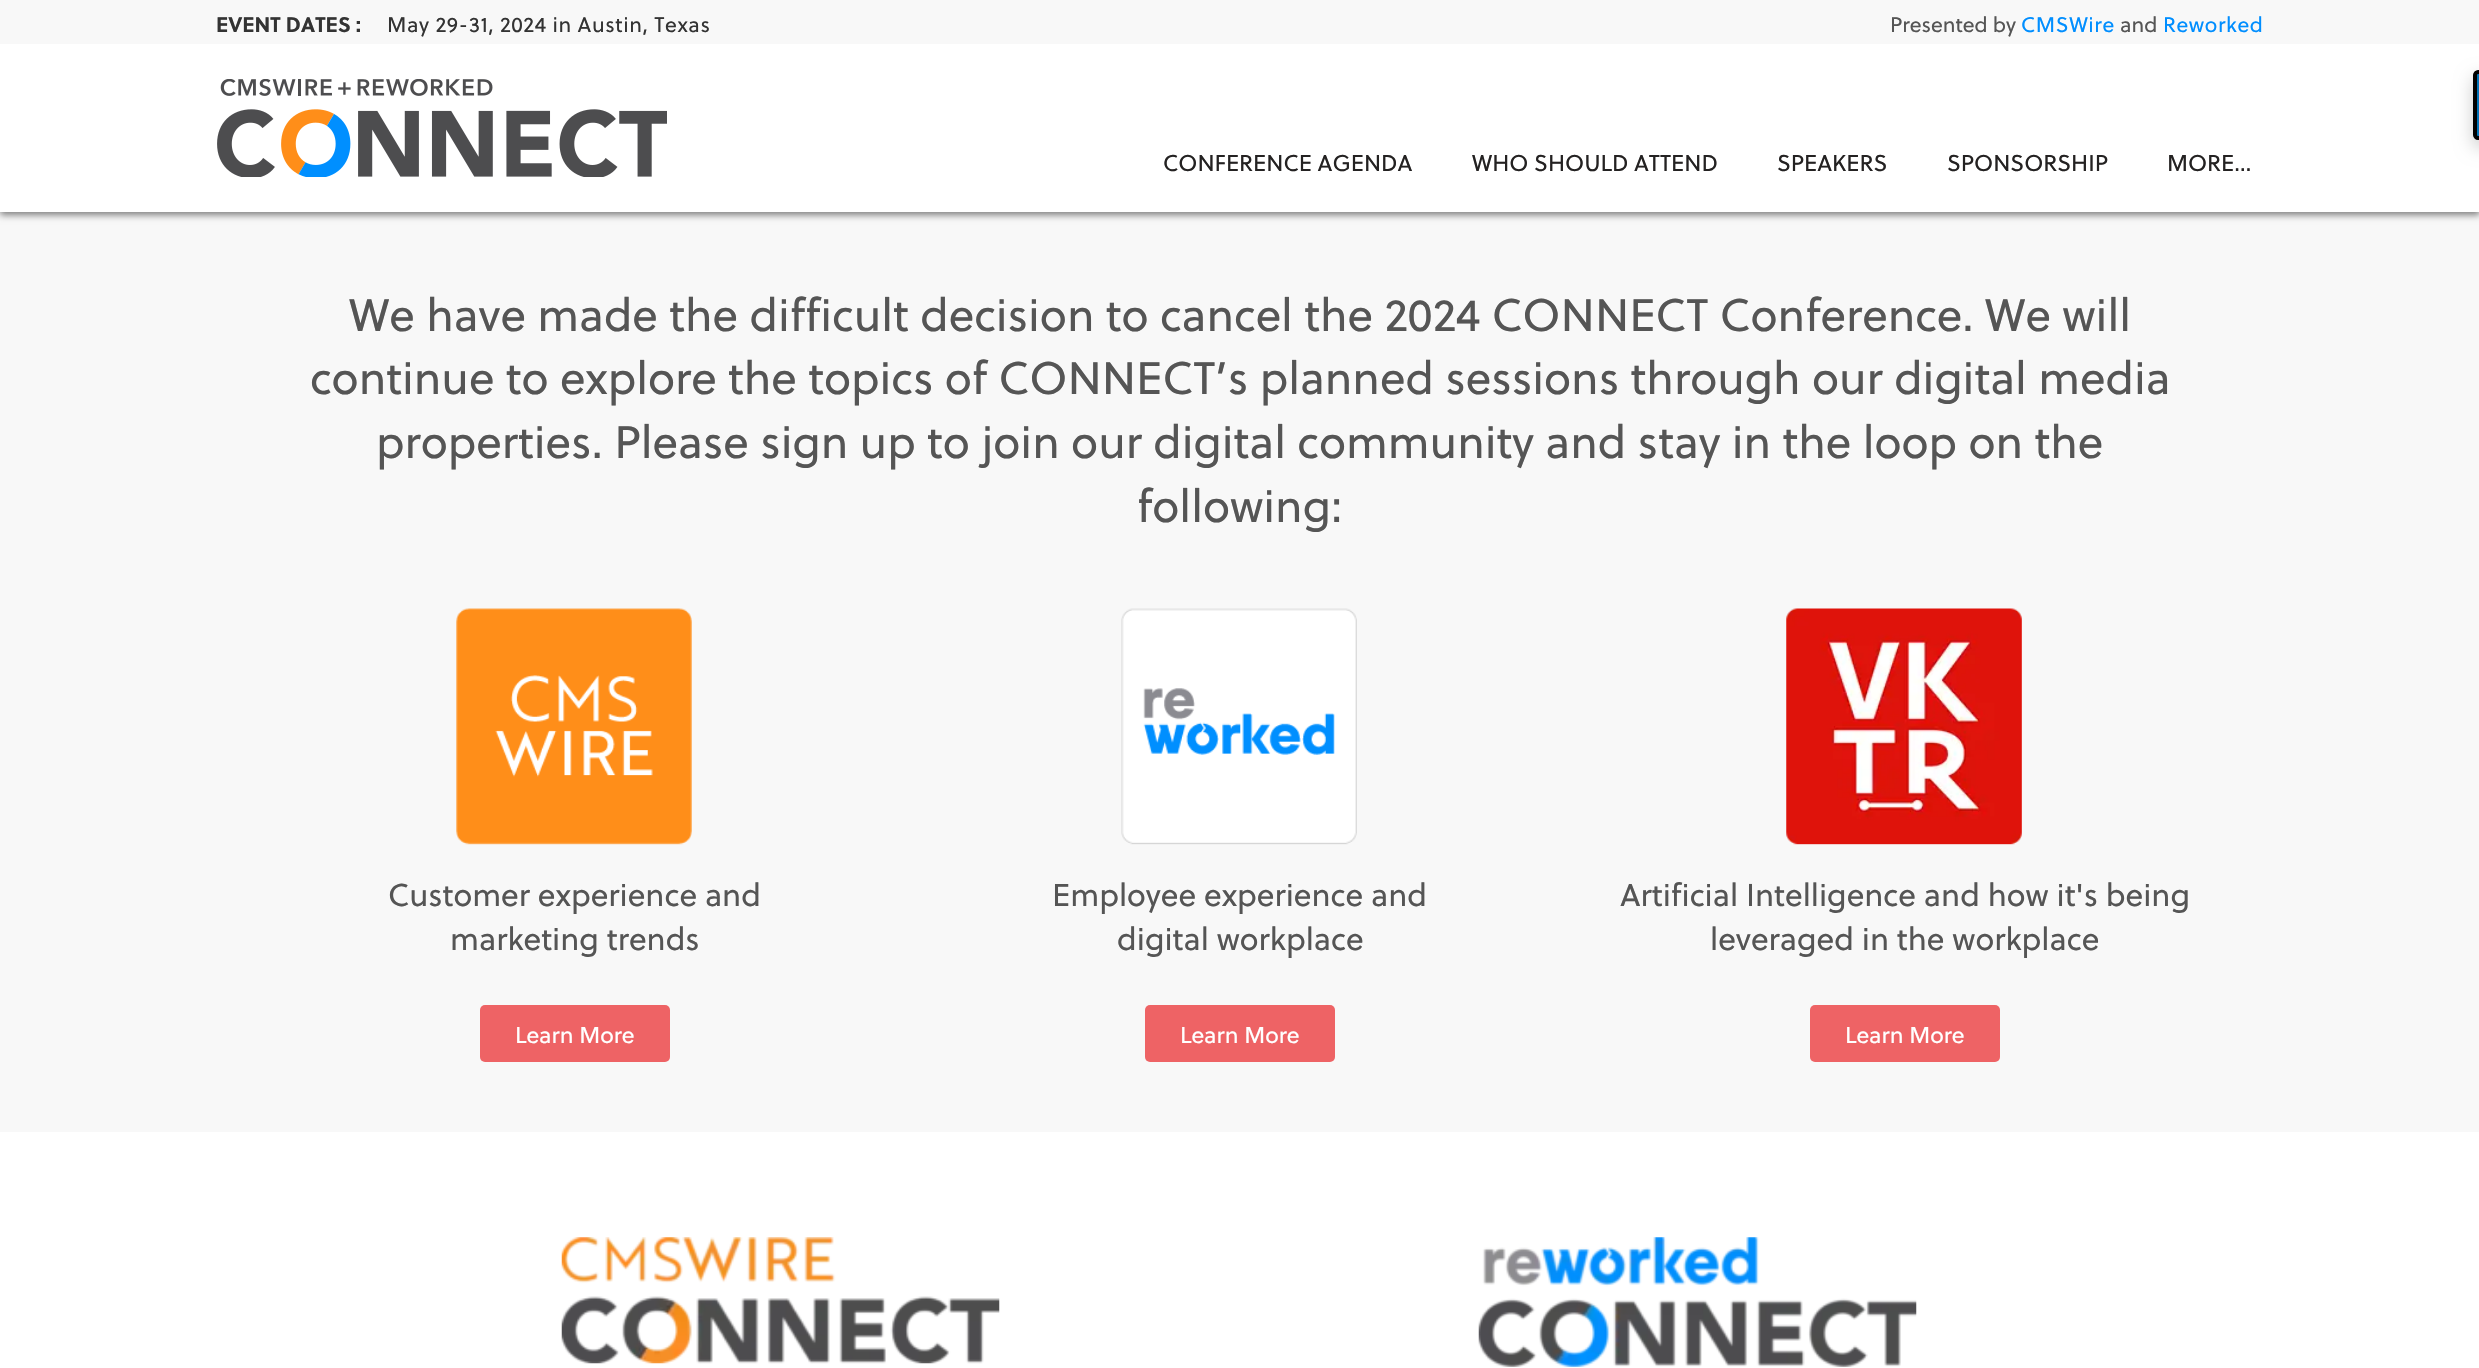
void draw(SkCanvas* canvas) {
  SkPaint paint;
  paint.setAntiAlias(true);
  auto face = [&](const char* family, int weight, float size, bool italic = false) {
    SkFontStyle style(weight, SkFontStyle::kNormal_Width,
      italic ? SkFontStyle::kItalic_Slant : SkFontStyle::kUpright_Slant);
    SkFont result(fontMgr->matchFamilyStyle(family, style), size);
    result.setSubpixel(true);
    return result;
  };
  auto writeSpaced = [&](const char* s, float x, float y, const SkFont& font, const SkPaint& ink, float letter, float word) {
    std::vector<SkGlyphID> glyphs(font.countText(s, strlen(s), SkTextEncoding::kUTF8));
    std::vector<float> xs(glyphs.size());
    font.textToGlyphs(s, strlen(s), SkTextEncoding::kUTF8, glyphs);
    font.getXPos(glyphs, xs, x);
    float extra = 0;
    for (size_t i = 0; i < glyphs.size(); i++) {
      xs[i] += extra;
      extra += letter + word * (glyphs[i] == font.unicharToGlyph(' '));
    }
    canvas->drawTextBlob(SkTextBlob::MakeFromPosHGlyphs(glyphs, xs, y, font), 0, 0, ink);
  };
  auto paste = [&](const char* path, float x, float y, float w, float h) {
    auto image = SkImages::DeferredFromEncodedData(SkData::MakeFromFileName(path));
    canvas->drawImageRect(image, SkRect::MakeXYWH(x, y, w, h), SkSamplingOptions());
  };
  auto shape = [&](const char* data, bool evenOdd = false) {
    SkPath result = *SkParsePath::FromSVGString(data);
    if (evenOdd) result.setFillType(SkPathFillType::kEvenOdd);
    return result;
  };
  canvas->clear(0xffffffff);
  paint.setColor(0xfff8f8f8);
  canvas->drawRect(SkRect::MakeXYWH(0, 212, 2479, 920), paint);
  paint.setColor(0x80000000);
  paint.setMaskFilter(SkMaskFilter::MakeBlur(kNormal_SkBlurStyle, 3.5f));
  canvas->drawRect(SkRect::MakeXYWH(0, 4, 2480, 211), paint);
  paint.setMaskFilter(nullptr);
  paint.setColor(0xffffffff);
  canvas->drawRect(SkRect::MakeXYWH(0, 44, 2479, 168), paint);
  paint.setColor(0xfff8f8f8);
  canvas->drawRect(SkRect::MakeXYWH(0, 0, 2479, 44), paint);
  paste("img/1.png", 217, 79, 450, 98);
  paste("img/2.png", 456, 608, 236, 237);
  paint.setColor(0xffee6365);
  canvas->drawRoundRect(SkRect::MakeXYWH(480, 1005, 190, 57), 5, 5, paint);
  paste("img/3.png", 1121, 608, 236, 237);
  canvas->drawRoundRect(SkRect::MakeXYWH(1145, 1005, 190, 57), 5, 5, paint);
  paste("img/4.png", 1786, 608, 236, 237);
  canvas->drawRoundRect(SkRect::MakeXYWH(1810, 1005, 190, 57), 5, 5, paint);
  paste("img/5.png", 561, 1237, 439, 127);
  paste("img/6.png", 1478, 1237, 439, 130);
  paint.setColor(0x33000000);
  paint.setMaskFilter(SkMaskFilter::MakeBlur(kNormal_SkBlurStyle, 9));
  canvas->drawRoundRect(SkRect::MakeXYWH(2473, 77, 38, 70), 5, 5, paint);
  paint.setMaskFilter(nullptr);
  paint.setColor(0xff0073b7);
  canvas->drawPath(shape("M2478 72H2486V138H2478C2476.5 138 2475 136.5 2475 135V75C2475 73.5 2476.5 72 2478 72Z"), paint);
  paint.setStroke(true);
  paint.setStrokeWidth(4);
  paint.setColor(0xff000000);
  canvas->drawPath(shape("M2478 72H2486V138H2478C2476.5 138 2475 136.5 2475 135V75C2475 73.5 2476.5 72 2478 72Z"), paint);
  auto f0 = face("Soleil", 700, 21);
  paint.setStroke(false);
  paint.setColor(0xff333333);
  canvas->drawString("EVENT DATES :", 216, 32, f0, paint);
  auto f1 = face("Soleil", 400, 21);
  writeSpaced("May 29-31, 2024 in Austin, Texas", 387, 32, f1, paint, 0.6f, 0);
  paint.setColor(0xff555555);
  canvas->drawString("Presented by", 1890, 32, f1, paint);
  paint.setColor(0xff008eff);
  writeSpaced("CMSWire", 2021, 32, f1, paint, 0.6f, 0);
  paint.setColor(0xff555555);
  canvas->drawString("and", 2120, 32, f1, paint);
  paint.setColor(0xff008eff);
  writeSpaced("Reworked", 2163, 32, f1, paint, 0.6f, 0);
  auto f2 = face("Soleil", 400, 22.75f);
  paint.setColor(0xff242222);
  {
    const struct { const char* s; float x, y; } items[] = {
      {"CONFERENCE AGENDA", 1163, 171},
      {"WHO SHOULD ATTEND", 1472, 171},
      {"SPEAKERS", 1777, 171},
      {"SPONSORSHIP", 1947, 171},
      {"MORE…", 2167, 171},
    };
    for (auto [s, x, y] : items) {
      canvas->drawString(s, x, y, f2, paint);
    }
  }
  auto f3 = face("Soleil", 400, 45.5f);
  paint.setColor(0xff555555);
  {
    const struct { const char* s; float x, y; } items[] = {
      {"We have made the difficult decision to cancel the 2024 CONNECT Conference. We will", 349, 331},
      {"continue to explore the topics of CONNECT’s planned sessions through our digital media", 310, 394},
      {"properties. Please sign up to join our digital community and stay in the loop on the", 376, 458},
      {"following:", 1137, 522},
    };
    for (auto [s, x, y] : items) {
      canvas->drawString(s, x, y, f3, paint);
    }
  }
  auto f4 = face("Soleil", 400, 31.5f);
  canvas->drawString("Customer experience and", 388, 906, f4, paint);
  canvas->drawString("marketing trends", 450, 950, f4, paint);
  paint.setColor(0xffffffff);
  canvas->drawString("Learn More", 515, 1043, f2, paint);
  paint.setColor(0xff555555);
  canvas->drawString("Employee experience and", 1052, 906, f4, paint);
  canvas->drawString("digital workplace", 1117, 950, f4, paint);
  paint.setColor(0xffffffff);
  canvas->drawString("Learn More", 1180, 1043, f2, paint);
  paint.setColor(0xff555555);
  canvas->drawString("Artificial Intelligence and how it's being", 1620, 906, f4, paint);
  canvas->drawString("leveraged in the workplace", 1710, 950, f4, paint);
  paint.setColor(0xffffffff);
  canvas->drawString("Learn More", 1845, 1043, f2, paint);
}
